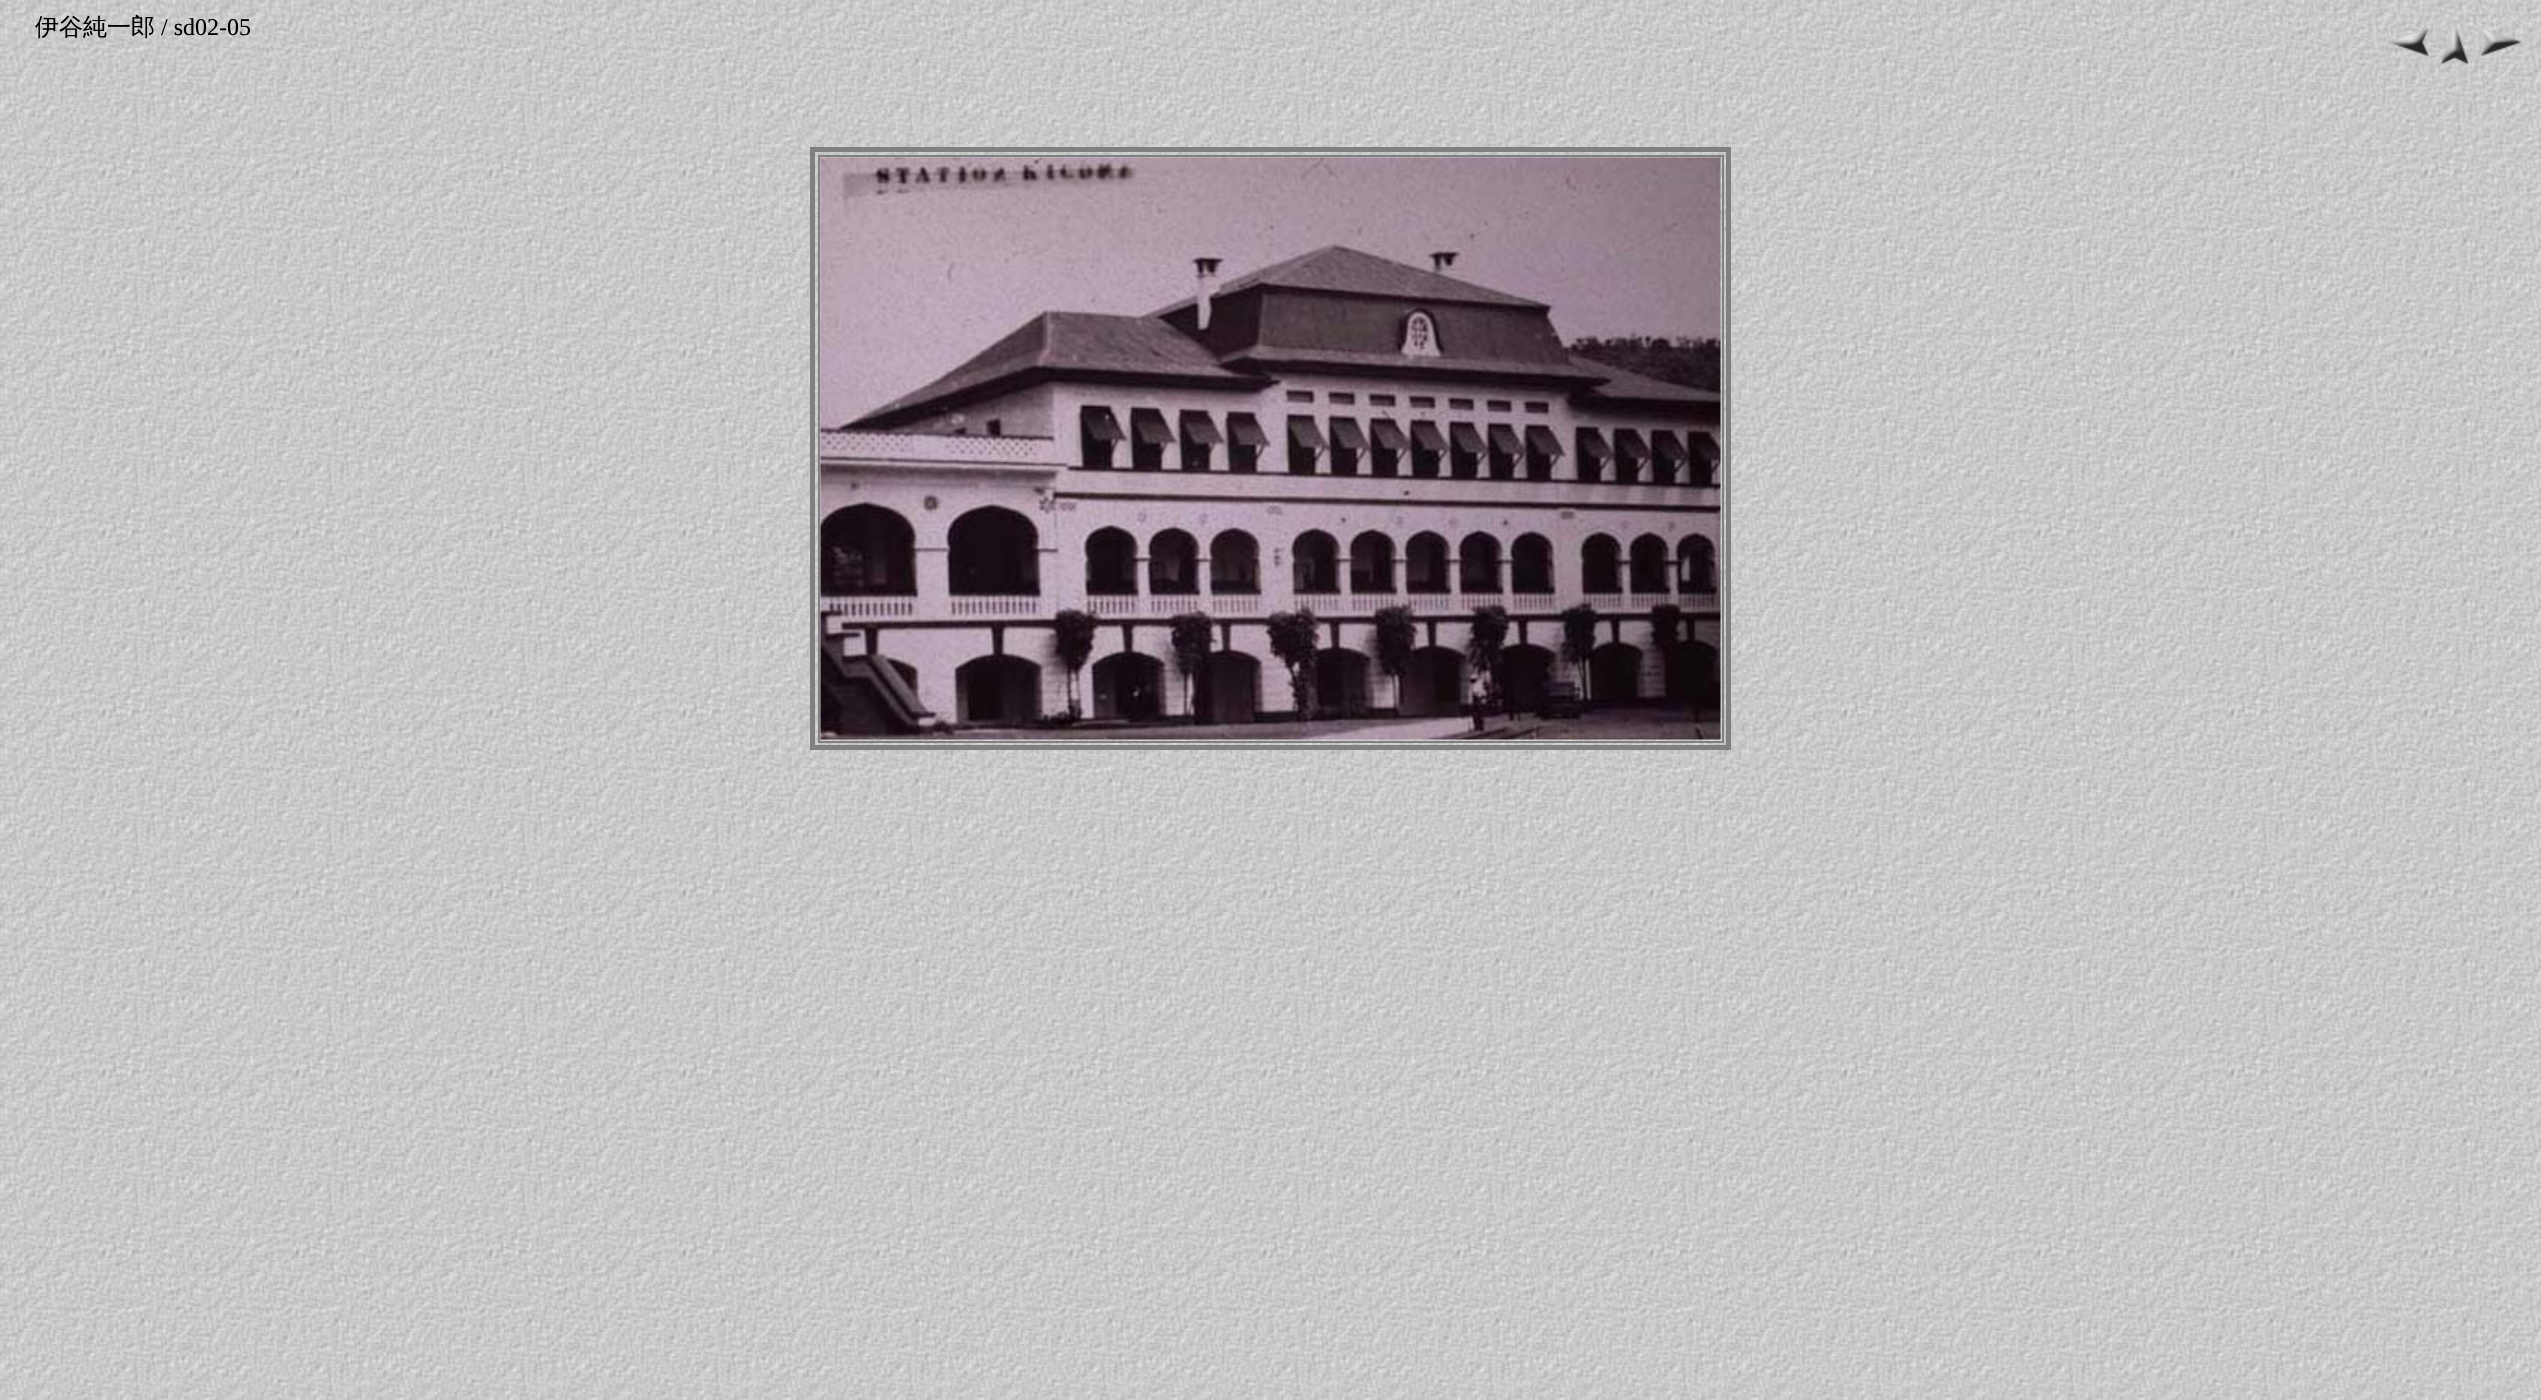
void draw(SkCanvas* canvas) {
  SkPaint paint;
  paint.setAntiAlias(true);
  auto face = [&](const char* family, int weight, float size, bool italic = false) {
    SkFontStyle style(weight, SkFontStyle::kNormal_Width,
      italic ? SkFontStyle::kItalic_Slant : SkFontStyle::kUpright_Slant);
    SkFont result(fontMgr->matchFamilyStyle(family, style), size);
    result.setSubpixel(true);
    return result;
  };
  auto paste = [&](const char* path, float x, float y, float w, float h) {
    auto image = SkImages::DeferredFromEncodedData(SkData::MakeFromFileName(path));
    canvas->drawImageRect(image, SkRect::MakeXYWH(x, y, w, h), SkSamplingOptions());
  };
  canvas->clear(0xffffffff);
  paste("img/1.png", 0, 0, 2541, 1400);
  paste("img/2.png", 2388, 28, 41, 29);
  paste("img/3.png", 2440, 23, 29, 42);
  paste("img/4.png", 2480, 28, 42, 29);
  paint.setStroke(true);
  paint.setStrokeWidth(5);
  paint.setColor(0xff808080);
  canvas->drawRect(SkRect::MakeXYWH(812.5f, 149.5f, 916, 598), paint);
  paint.setStrokeWidth(2);
  canvas->drawRect(SkRect::MakeXYWH(819, 156, 904, 586), paint);
  paste("img/5.png", 820, 157, 901, 583);
  auto f0 = face("WenQuanYi Zen Hei", 500, 24);
  paint.setStroke(false);
  paint.setColor(0xff000000);
  canvas->drawString("伊谷純一郎", 35, 35, f0, paint);
  auto f1 = face("Liberation Serif", 400, 24);
  canvas->drawString("/ sd02-05", 161, 35, f1, paint);
}
